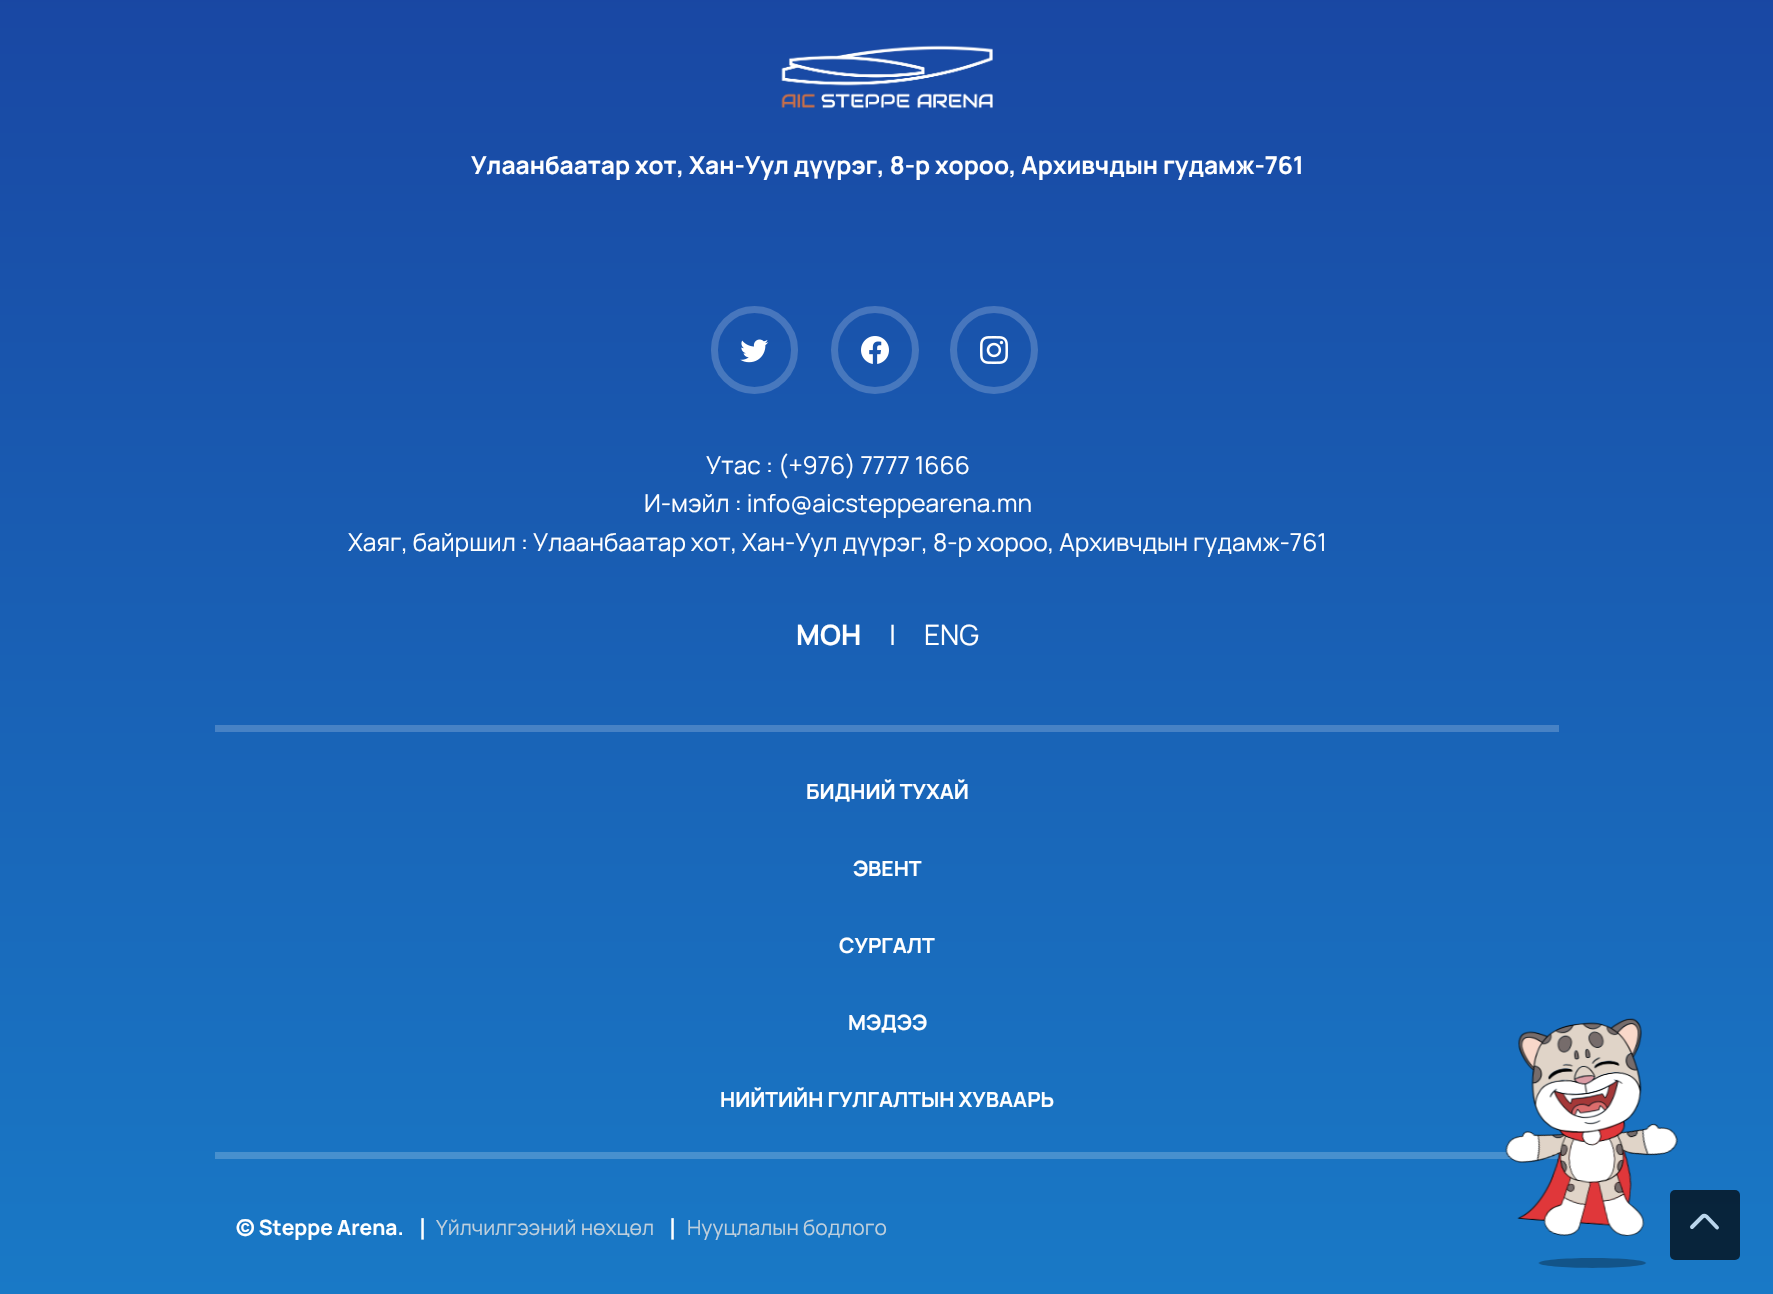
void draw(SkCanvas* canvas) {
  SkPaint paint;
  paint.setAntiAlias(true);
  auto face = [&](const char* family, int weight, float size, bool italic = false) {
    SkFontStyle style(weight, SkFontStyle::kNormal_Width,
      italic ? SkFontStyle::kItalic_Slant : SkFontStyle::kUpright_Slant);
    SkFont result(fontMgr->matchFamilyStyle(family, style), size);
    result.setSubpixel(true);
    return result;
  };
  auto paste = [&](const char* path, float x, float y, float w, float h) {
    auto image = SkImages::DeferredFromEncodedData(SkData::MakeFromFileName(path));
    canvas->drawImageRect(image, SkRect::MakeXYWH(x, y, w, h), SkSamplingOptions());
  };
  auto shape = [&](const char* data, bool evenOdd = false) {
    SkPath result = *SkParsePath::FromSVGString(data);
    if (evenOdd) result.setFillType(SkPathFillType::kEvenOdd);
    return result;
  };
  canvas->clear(0xffffffff);
  {
    const SkColor colors[] = {0xff1947a3, 0xff1979c6};
    const float stops[] = {0, 1};
    const SkPoint ends[] = {{887, -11}, {887, 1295}};
    paint.setShader(SkGradientShader::MakeLinear(ends, colors, stops, 2, SkTileMode::kClamp));
    paint.setAlpha(255);
  }
  canvas->drawRect(SkRect::MakeXYWH(0, 0, 1773, 1294), paint);
  paste("img/1.png", 781, 45, 212, 64);
  paint.setStroke(true);
  paint.setStrokeWidth(7);
  paint.setShader(nullptr);
  paint.setColor(0x33ffffff);
  canvas->drawRoundRect(SkRect::MakeXYWH(714.5f, 309.5f, 80, 81), 40, 40, paint);
  paste("img/2.png", 740, 339, 29, 24);
  canvas->drawCircle(875, 350, 40.5f, paint);
  paste("img/3.png", 861, 336, 28, 28);
  canvas->drawCircle(994, 350, 40.5f, paint);
  paste("img/4.png", 980, 336, 28, 28);
  paint.setStroke(false);
  paint.setColor(0xff4782c5);
  canvas->drawRect(SkRect::MakeXYWH(215, 725, 1344, 7), paint);
  paint.setColor(0xff4790ce);
  canvas->drawRect(SkRect::MakeXYWH(215, 1152, 1344, 7), paint);
  paste("img/5.png", 1505, 1018, 174, 250);
  paint.setColor(0xb3000000);
  canvas->drawRoundRect(SkRect::MakeXYWH(1670, 1190, 70, 70), 5, 5, paint);
  paint.setStroke(true);
  paint.setStrokeWidth(3.9f);
  paint.setStrokeCap(SkPaint::kRound_Cap);
  paint.setStrokeJoin(SkPaint::kBevel_Join);
  paint.setColor(0xffbad6ed);
  canvas->drawPath(shape("M1717 1227.5L1706.5 1216.5C1705 1215.5 1703.5 1215.5 1702.5 1216.5L1692 1227"), paint);
  auto f0 = face("Manrope", 700, 24.5f);
  paint.setStroke(false);
  paint.setColor(0xffffffff);
  canvas->drawString("Улаанбаатар хот, Хан-Уул дүүрэг, 8-р хороо, Архивчдын гудамж-761", 471, 174, f0, paint);
  auto f1 = face("Manrope", 400, 24.5f);
  {
    const struct { const char* s; float x, y; } items[] = {
      {"Утас : (+976) 7777 1666", 706, 474},
      {"И-мэйл : info@aicsteppearena.mn", 644, 512},
      {"Хаяг, байршил : Улаанбаатар хот, Хан-Уул дүүрэг, 8-р хороо, Архивчдын гудамж-761", 348, 551},
    };
    for (auto [s, x, y] : items) {
      canvas->drawString(s, x, y, f1, paint);
    }
  }
  auto f2 = face("Manrope", 700, 28);
  canvas->drawString("МОН", 796, 645, f2, paint);
  auto f3 = face("Manrope", 400, 28);
  canvas->drawString("|", 889, 645, f3, paint);
  canvas->drawString("ENG", 924, 645, f3, paint);
  auto f4 = face("Manrope", 700, 21);
  {
    const struct { const char* s; float x, y; } items[] = {
      {"БИДНИЙ ТУХАЙ", 806, 799},
      {"ЭВЕНТ", 853, 876},
      {"СУРГАЛТ", 839, 953},
      {"МЭДЭЭ", 848, 1030},
      {"НИЙТИЙН ГУЛГАЛТЫН ХУВААРЬ", 720, 1107},
      {"© Steppe Arena.", 236, 1235},
    };
    for (auto [s, x, y] : items) {
      canvas->drawString(s, x, y, f4, paint);
    }
  }
  auto f5 = face("DejaVu Sans", 700, 21);
  canvas->drawString("∣", 417, 1235, f5, paint);
  auto f6 = face("Manrope", 400, 21);
  paint.setColor(0xffbfcfdc);
  canvas->drawString("Үйлчилгээний нөхцөл", 436, 1235, f6, paint);
  paint.setColor(0xffffffff);
  canvas->drawString("∣", 667, 1235, f5, paint);
  paint.setColor(0xffbfcfdc);
  canvas->drawString("Нууцлалын бодлого", 687, 1235, f6, paint);
}
